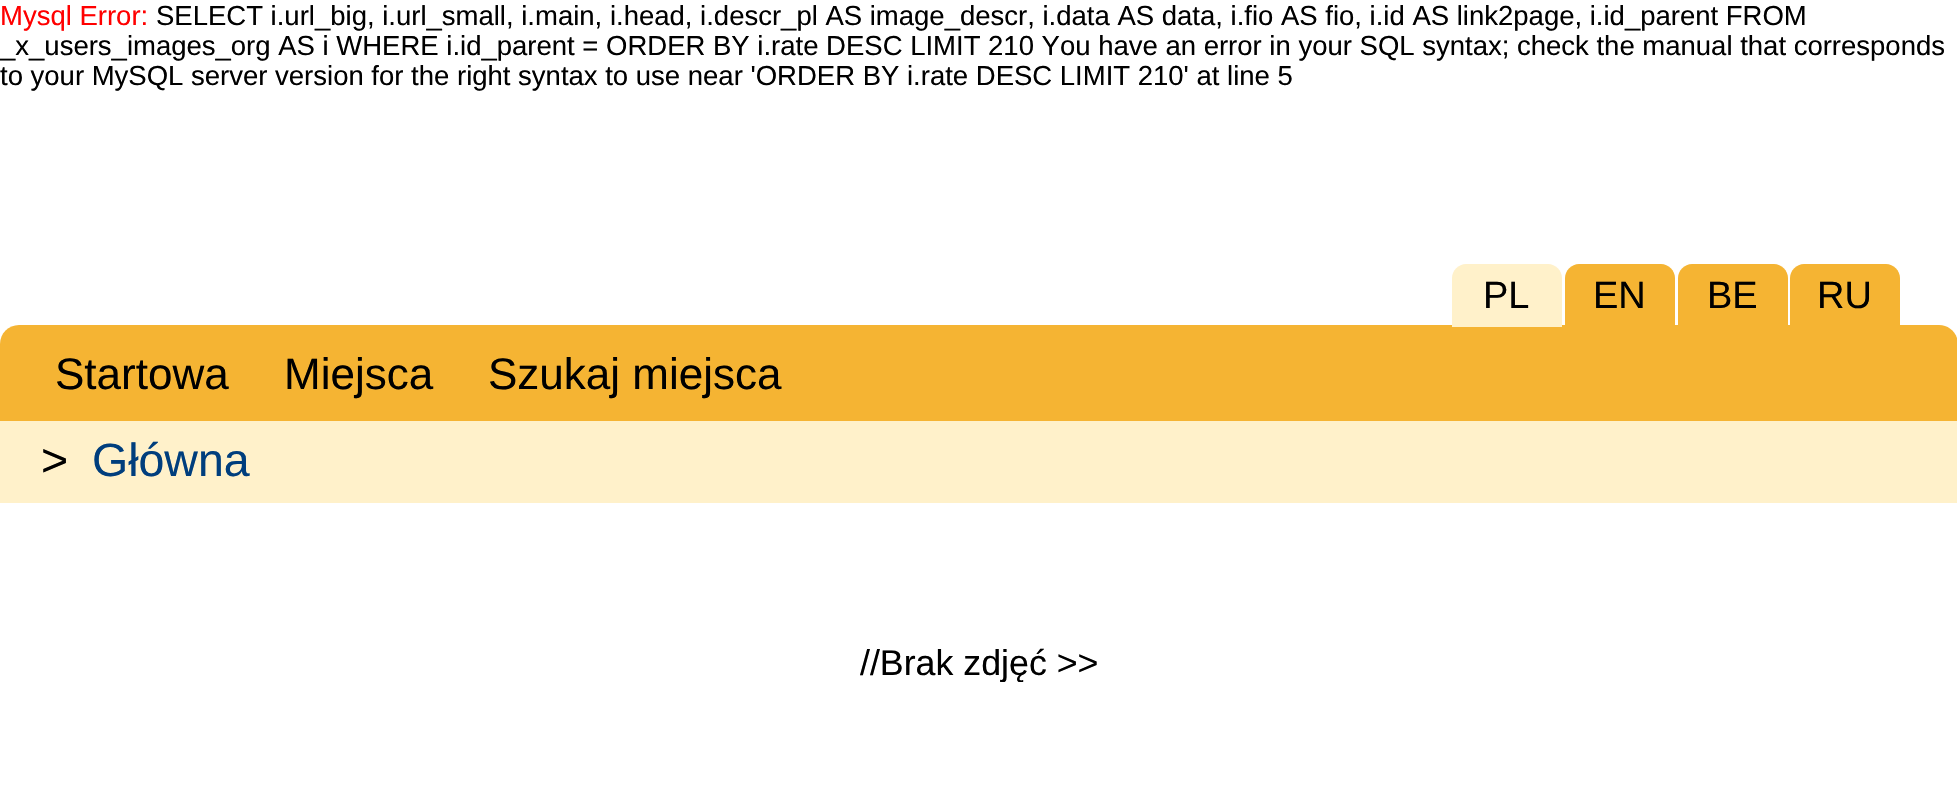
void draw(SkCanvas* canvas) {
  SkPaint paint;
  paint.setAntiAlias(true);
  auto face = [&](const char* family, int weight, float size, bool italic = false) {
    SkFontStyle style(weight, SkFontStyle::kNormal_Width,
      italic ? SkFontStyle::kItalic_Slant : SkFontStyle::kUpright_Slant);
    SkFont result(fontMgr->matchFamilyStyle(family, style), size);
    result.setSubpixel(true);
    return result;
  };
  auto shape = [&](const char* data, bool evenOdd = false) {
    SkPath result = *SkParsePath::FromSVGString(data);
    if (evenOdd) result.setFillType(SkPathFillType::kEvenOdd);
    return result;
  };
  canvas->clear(0xffffffff);
  paint.setColor(0xfff5b433);
  canvas->drawPath(shape("M19 325H1939C1949.5 325 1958 333.5 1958 344V421H0V344C0 333.5 8.5 325 19 325Z"), paint);
  paint.setColor(0xfffff1ca);
  canvas->drawPath(shape("M1466 264H1548C1555.5 264 1562 270.5 1562 278V327H1452V278C1452 270.5 1458.5 264 1466 264Z"), paint);
  paint.setColor(0xfff5b433);
  canvas->drawPath(shape("M1579 264H1661C1668.5 264 1675 270.5 1675 278V327H1565V278C1565 270.5 1571.5 264 1579 264Z"), paint);
  canvas->drawPath(shape("M1692 264H1774C1781.5 264 1788 270.5 1788 278V327H1678V278C1678 270.5 1684.5 264 1692 264Z"), paint);
  canvas->drawPath(shape("M1804 264H1886C1893.5 264 1900 270.5 1900 278V327H1790V278C1790 270.5 1796.5 264 1804 264Z"), paint);
  paint.setColor(0xfffff1ca);
  canvas->drawRect(SkRect::MakeXYWH(0, 421, 1957, 82), paint);
  auto f0 = face("Liberation Sans", 400, 27.5f);
  paint.setColor(0xffff0000);
  canvas->drawString("Mysql Error:", 0, 25, f0, paint);
  paint.setColor(0xff000000);
  {
    const struct { const char* s; float x, y; } items[] = {
      {"SELECT i.url_big, i.url_small, i.main, i.head, i.descr_pl AS image_descr, i.data AS data, i.fio AS fio, i.id AS link2page, i.id_parent FROM", 156, 25},
      {"_x_users_images_org AS i WHERE i.id_parent = ORDER BY i.rate DESC LIMIT 210 You have an error in your SQL syntax; check the manual that corresponds", 0, 55},
      {"to your MySQL server version for the right syntax to use near 'ORDER BY i.rate DESC LIMIT 210' at line 5", 0, 85},
    };
    for (auto [s, x, y] : items) {
      canvas->drawString(s, x, y, f0, paint);
    }
  }
  auto f1 = face("Liberation Sans", 400, 38);
  {
    const struct { const char* s; float x, y; } items[] = {
      {"PL", 1483, 308},
      {"EN", 1593, 308},
      {"BE", 1707, 308},
      {"RU", 1817, 308},
    };
    for (auto [s, x, y] : items) {
      canvas->drawString(s, x, y, f1, paint);
    }
  }
  auto f2 = face("Liberation Sans", 400, 44);
  {
    const struct { const char* s; float x, y; } items[] = {
      {"Startowa", 55, 389},
      {"Miejsca", 284, 389},
      {"Szukaj miejsca", 488, 389},
    };
    for (auto [s, x, y] : items) {
      canvas->drawString(s, x, y, f2, paint);
    }
  }
  auto f3 = face("Liberation Sans", 400, 46.5f);
  canvas->drawString(">", 41, 476, f3, paint);
  paint.setColor(0xff003e7d);
  canvas->drawString("Główna", 92, 476, f3, paint);
  canvas->save();
  canvas->clipRect(SkRect::MakeXYWH(0, 641, 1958, 41));
  auto f4 = face("Liberation Sans", 400, 35.75f);
  paint.setColor(0xff000000);
  canvas->drawString("//Brak zdjęć >>", 860, 675, f4, paint);
  canvas->restore();
}
